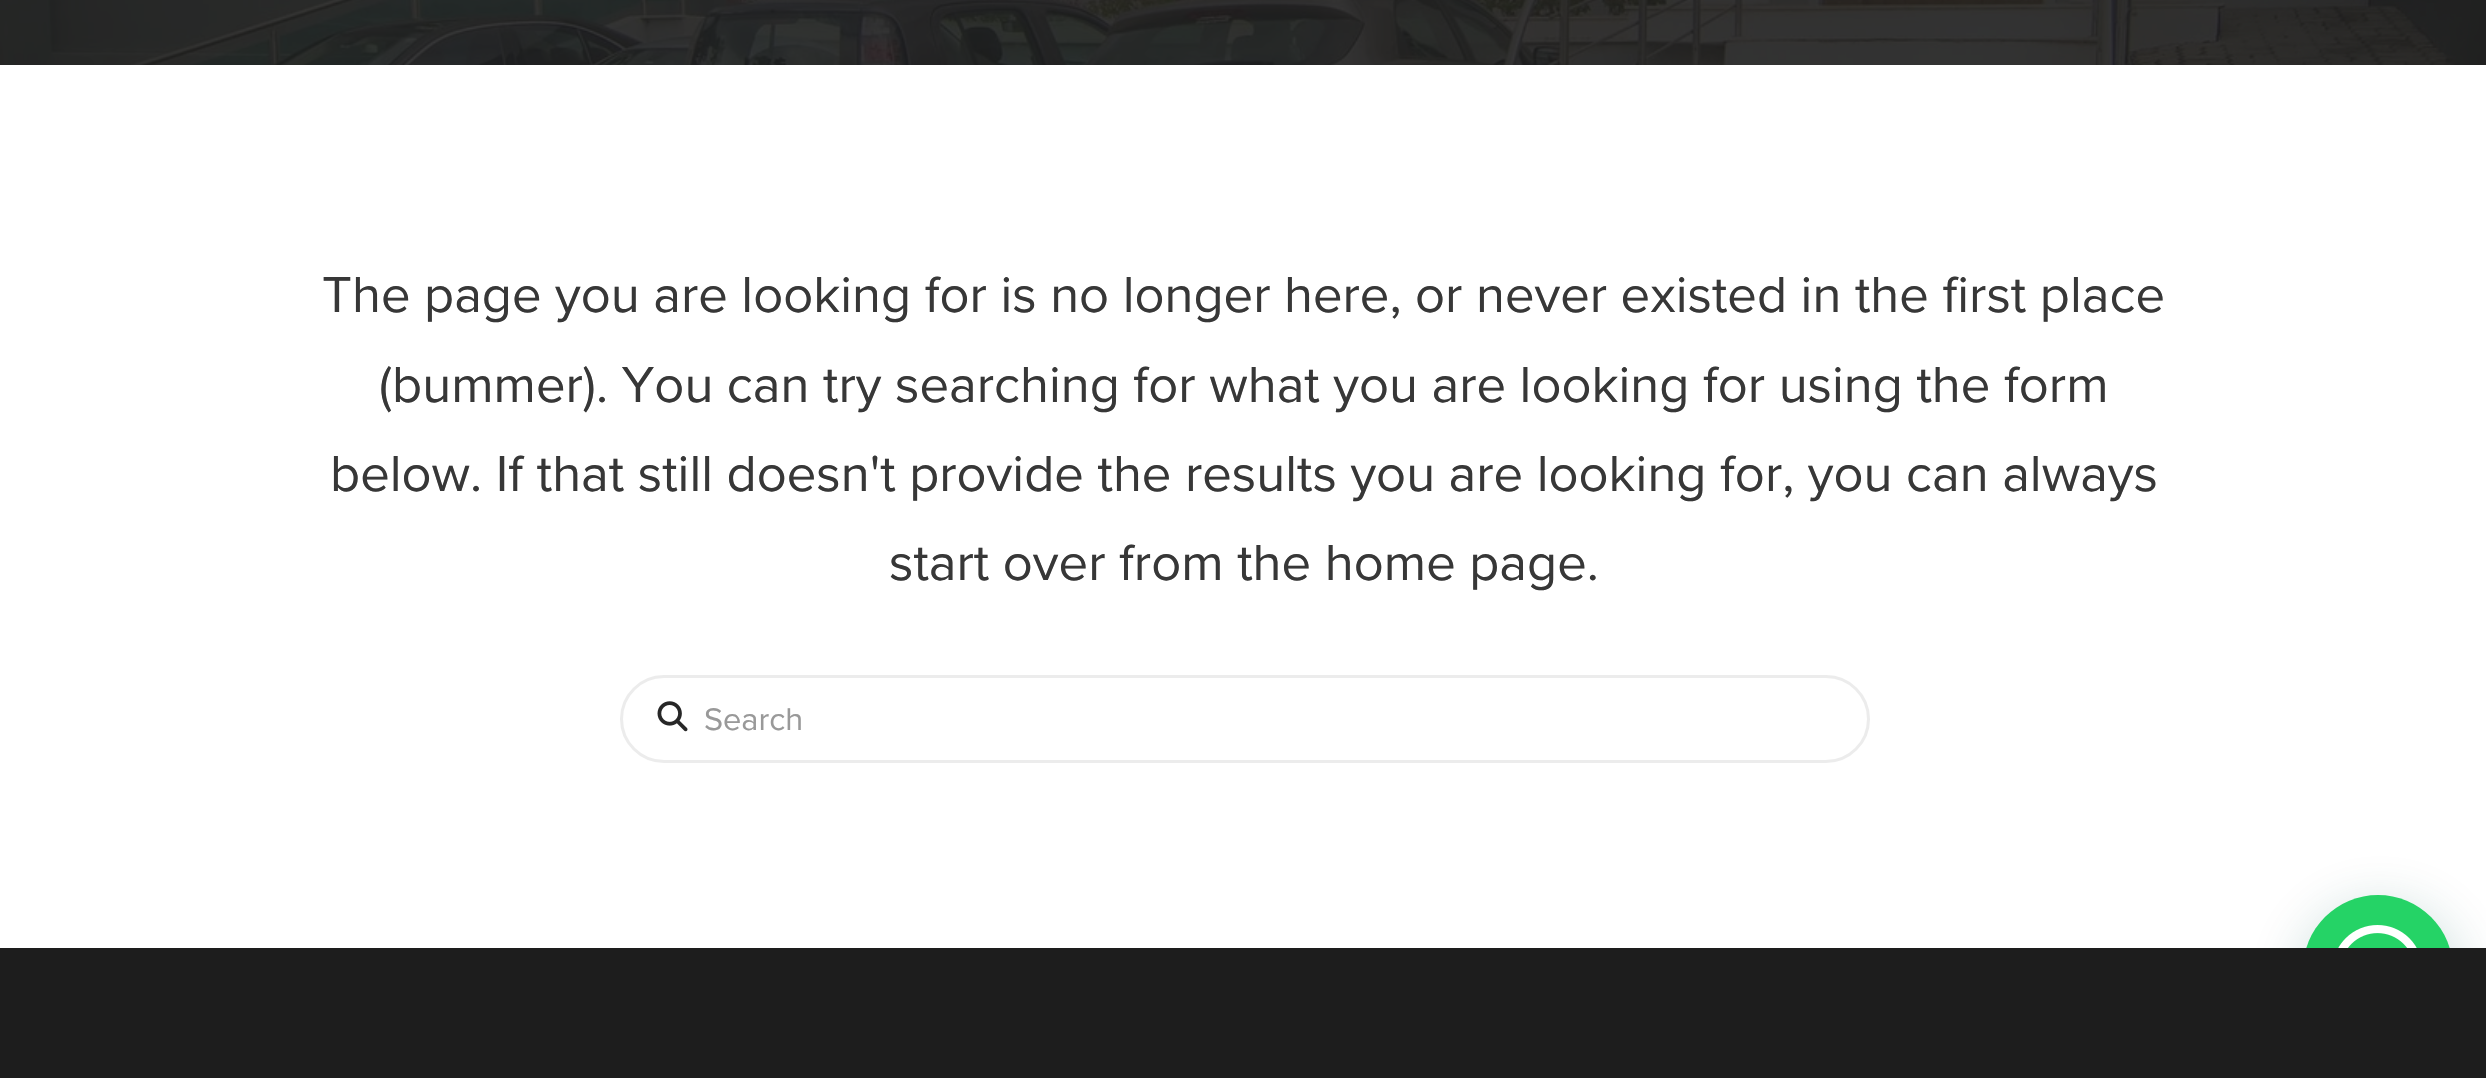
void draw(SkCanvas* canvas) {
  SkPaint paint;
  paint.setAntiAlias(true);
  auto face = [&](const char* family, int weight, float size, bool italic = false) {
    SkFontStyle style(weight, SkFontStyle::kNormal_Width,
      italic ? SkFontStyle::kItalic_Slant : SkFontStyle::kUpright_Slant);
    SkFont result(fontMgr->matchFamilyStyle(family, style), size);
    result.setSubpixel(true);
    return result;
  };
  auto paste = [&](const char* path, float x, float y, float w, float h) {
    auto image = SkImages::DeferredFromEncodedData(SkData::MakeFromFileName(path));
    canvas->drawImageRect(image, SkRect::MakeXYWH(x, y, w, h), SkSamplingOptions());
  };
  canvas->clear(0xffffffff);
  paste("img/1.png", 0, 0, 2486, 65);
  paint.setStroke(true);
  paint.setStrokeWidth(3);
  paint.setColor(0xffececec);
  canvas->drawRoundRect(SkRect::MakeXYWH(621.5f, 676.5f, 1247, 85), 42.5f, 42.5f, paint);
  paste("img/2.png", 657, 701, 31, 31);
  paint.setStroke(false);
  paint.setColor(0x3d075e54);
  paint.setMaskFilter(SkMaskFilter::MakeBlur(kNormal_SkBlurStyle, 30));
  canvas->drawRoundRect(SkRect::MakeXYWH(2305, 910, 150, 150), 75, 75, paint);
  paint.setMaskFilter(nullptr);
  paint.setColor(0xff25d366);
  canvas->drawCircle(2378, 970, 75, paint);
  paint.setColor(0xff1d1d1d);
  canvas->drawRect(SkRect::MakeXYWH(0, 948, 2486, 130), paint);
  paste("img/3.png", 2338, 925, 79, 23);
  auto f0 = face("Proxima Nova", 400, 52.5f);
  paint.setColor(0xff373737);
  {
    const struct { const char* s; float x, y; } items[] = {
      {"The page you are looking for is no longer here, or never existed in the first place", 322, 312},
      {"(bummer). You can try searching for what you are looking for using the form", 379, 402},
      {"below. If that still doesn't provide the results you are looking for, you can always", 330, 491},
      {"start over from the home page.", 889, 580},
    };
    for (auto [s, x, y] : items) {
      canvas->drawString(s, x, y, f0, paint);
    }
  }
  auto f1 = face("Proxima Nova", 400, 32.5f);
  paint.setColor(0xff999999);
  canvas->drawString("Search", 704, 730, f1, paint);
}
